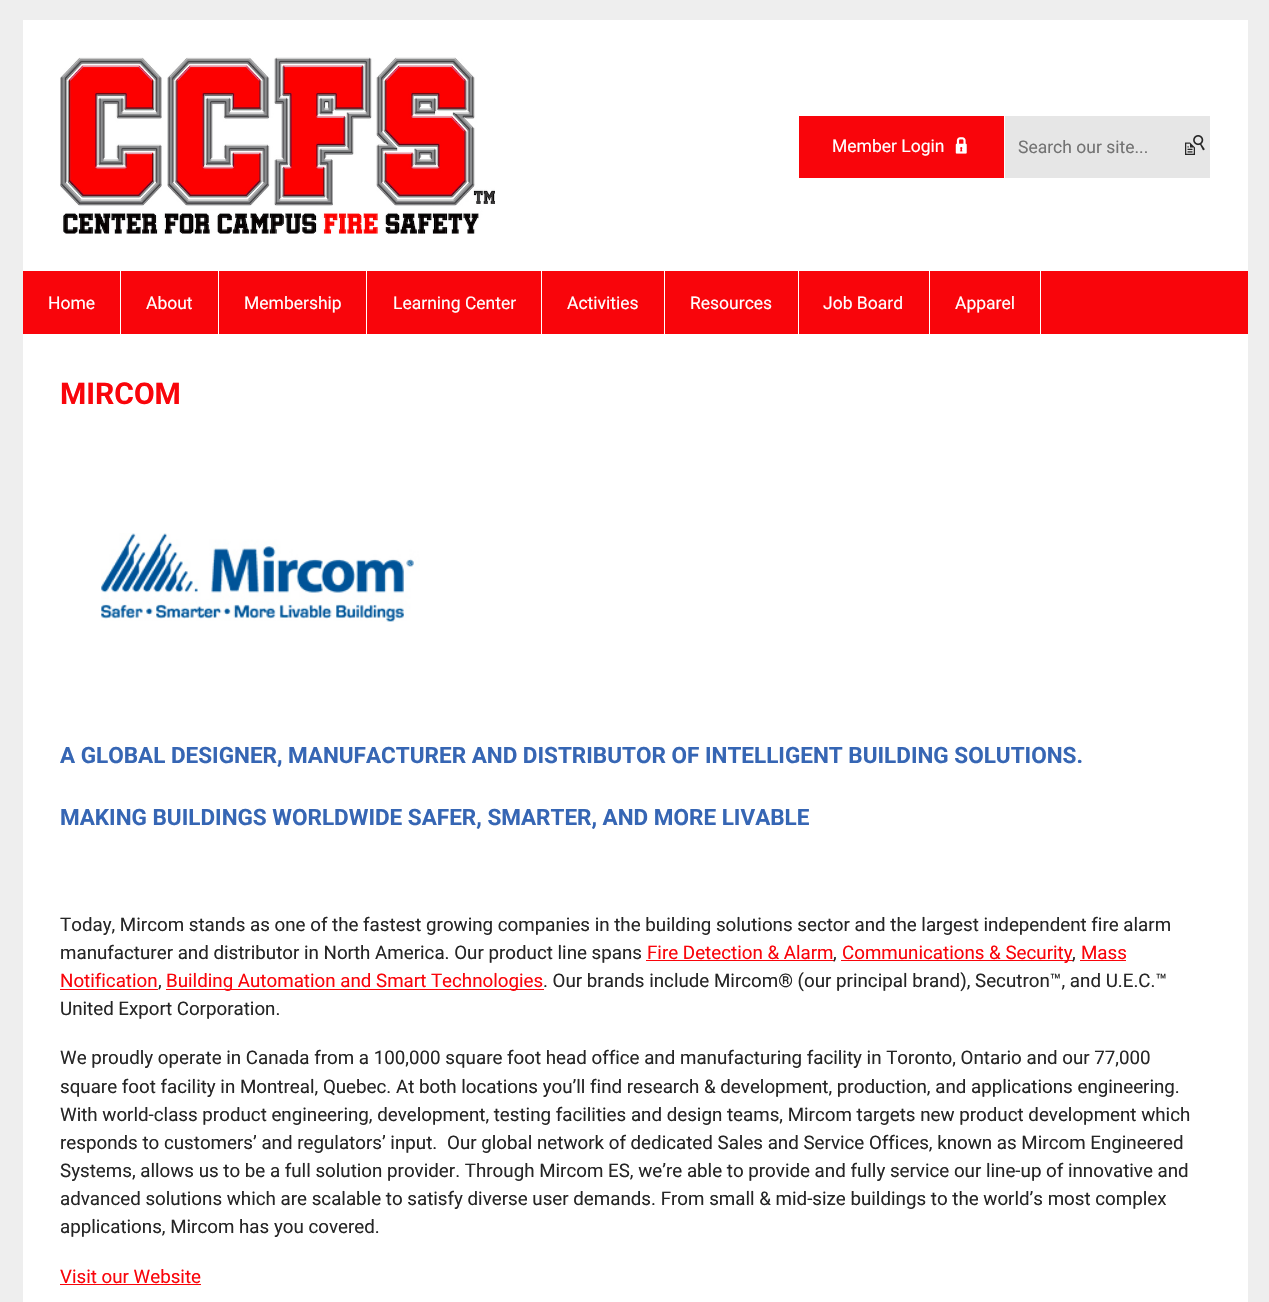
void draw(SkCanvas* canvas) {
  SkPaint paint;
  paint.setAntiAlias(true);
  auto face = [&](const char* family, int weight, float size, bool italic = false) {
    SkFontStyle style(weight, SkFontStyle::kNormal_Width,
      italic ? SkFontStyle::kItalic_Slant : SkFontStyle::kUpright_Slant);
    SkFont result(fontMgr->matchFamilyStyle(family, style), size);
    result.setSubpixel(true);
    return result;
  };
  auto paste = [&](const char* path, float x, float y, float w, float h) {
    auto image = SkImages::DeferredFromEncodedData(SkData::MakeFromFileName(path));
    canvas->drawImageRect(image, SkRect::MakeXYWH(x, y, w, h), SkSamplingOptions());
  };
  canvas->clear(0xffeeeeee);
  paint.setColor(0xffffffff);
  canvas->drawRect(SkRect::MakeXYWH(23, 20, 1225, 251), paint);
  paste("img/1.png", 60, 57, 435, 177);
  paint.setColor(0xfff9050b);
  canvas->drawRect(SkRect::MakeXYWH(799, 116, 205, 62), paint);
  paste("img/2.png", 955, 137, 12, 17);
  paint.setColor(0xffe6e6e6);
  canvas->drawRect(SkRect::MakeXYWH(1005, 116, 205, 62), paint);
  paste("img/3.png", 1185, 135, 20, 20);
  {
    const struct { float x, y, w, h; SkColor color; } items[] = {
      {23, 271, 1225, 63, 0xfff9050b},
      {23, 334, 1225, 968, 0xffffffff},
      {120, 271, 1, 63, 0xffffffff},
      {218, 271, 1, 63, 0xffffffff},
      {366, 271, 1, 63, 0xffffffff},
      {541, 271, 1, 63, 0xffffffff},
      {664, 271, 1, 63, 0xffffffff},
      {798, 271, 1, 63, 0xffffffff},
      {929, 271, 1, 63, 0xffffffff},
      {1040, 271, 1, 63, 0xffffffff},
    };
    for (auto [x, y, w, h, color] : items) {
      paint.setColor(color);
      canvas->drawRect(SkRect::MakeXYWH(x, y, w, h), paint);
    }
  }
  paste("img/4.png", 101, 533, 319, 89);
  {
    const struct { float x, y, w, h; SkColor color; } items[] = {
      {646, 960, 188, 1, 0xfff9050b},
      {841, 960, 232, 1, 0xfff9050b},
      {1080, 960, 46, 1, 0xfff9050b},
      {60, 989, 98, 1, 0xfff9050b},
      {166, 989, 378, 1, 0xfff9050b},
      {60, 1284, 141, 1, 0xfff9050b},
    };
    for (auto [x, y, w, h, color] : items) {
      paint.setColor(color);
      canvas->drawRect(SkRect::MakeXYWH(x, y, w, h), paint);
    }
  }
  auto f0 = face("Roboto", 400, 17.5f);
  paint.setColor(0xffffffff);
  canvas->drawString("Member Login", 832, 152, f0, paint);
  paint.setColor(0xff737373);
  canvas->drawString("Search our site...", 1018, 153, f0, paint);
  paint.setColor(0xffffffff);
  {
    const struct { const char* s; float x, y; } items[] = {
      {"Home", 48, 309},
      {"About", 146, 309},
      {"Membership", 244, 309},
      {"Learning Center", 393, 309},
      {"Activities", 567, 309},
      {"Resources", 690, 309},
      {"Job Board", 823, 309},
      {"Apparel", 955, 309},
    };
    for (auto [s, x, y] : items) {
      canvas->drawString(s, x, y, f0, paint);
    }
  }
  auto f1 = face("Roboto", 700, 30);
  paint.setColor(0xfff9050b);
  canvas->drawString("MIRCOM", 60, 404, f1, paint);
  auto f2 = face("Roboto", 700, 22.5f);
  paint.setColor(0xff3666b4);
  canvas->drawString("A GLOBAL DESIGNER, MANUFACTURER AND DISTRIBUTOR OF INTELLIGENT BUILDING SOLUTIONS.", 60, 763, f2, paint);
  canvas->drawString("MAKING BUILDINGS WORLDWIDE SAFER, SMARTER, AND MORE LIVABLE", 60, 825, f2, paint);
  auto f3 = face("Roboto", 400, 18.75f);
  paint.setColor(0xff262626);
  canvas->drawString("Today, Mircom stands as one of the fastest growing companies in the building solutions sector and the largest independent fire alarm", 60, 931, f3, paint);
  canvas->drawString("manufacturer and distributor in North America. Our product line spans", 60, 959, f3, paint);
  paint.setColor(0xfff9050b);
  canvas->drawString("Fire Detection & Alarm", 647, 959, f3, paint);
  paint.setColor(0xff262626);
  canvas->drawString(",", 833, 959, f3, paint);
  paint.setColor(0xfff9050b);
  canvas->drawString("Communications & Security", 842, 959, f3, paint);
  paint.setColor(0xff262626);
  canvas->drawString(",", 1072, 959, f3, paint);
  paint.setColor(0xfff9050b);
  canvas->drawString("Mass", 1081, 959, f3, paint);
  canvas->drawString("Notification", 60, 987, f3, paint);
  paint.setColor(0xff262626);
  canvas->drawString(",", 158, 987, f3, paint);
  paint.setColor(0xfff9050b);
  canvas->drawString("Building Automation and Smart Technologies", 166, 987, f3, paint);
  paint.setColor(0xff262626);
  {
    const struct { const char* s; float x, y; } items[] = {
      {". Our brands include Mircom® (our principal brand), Secutron™, and U.E.C.™", 543, 987},
      {"United Export Corporation.", 60, 1015},
      {"We proudly operate in Canada from a 100,000 square foot head office and manufacturing facility in Toronto, Ontario and our 77,000", 60, 1064},
      {"square foot facility in Montreal, Quebec. At both locations you’ll find research & development, production, and applications engineering.", 60, 1093},
      {"With world-class product engineering, development, testing facilities and design teams, Mircom targets new product development which", 60, 1121},
      {"responds to customers’ and regulators’ input.", 60, 1149},
      {"Our global network of dedicated Sales and Service Offices, known as Mircom Engineered", 447, 1149},
      {"Systems, allows us to be a full solution provider. Through Mircom ES, we’re able to provide and fully service our line-up of innovative and", 60, 1177},
      {"advanced solutions which are scalable to satisfy diverse user demands. From small & mid-size buildings to the world’s most complex", 60, 1205},
      {"applications, Mircom has you covered.", 60, 1233},
    };
    for (auto [s, x, y] : items) {
      canvas->drawString(s, x, y, f3, paint);
    }
  }
  paint.setColor(0xfff9050b);
  canvas->drawString("Visit our Website", 60, 1283, f3, paint);
}
